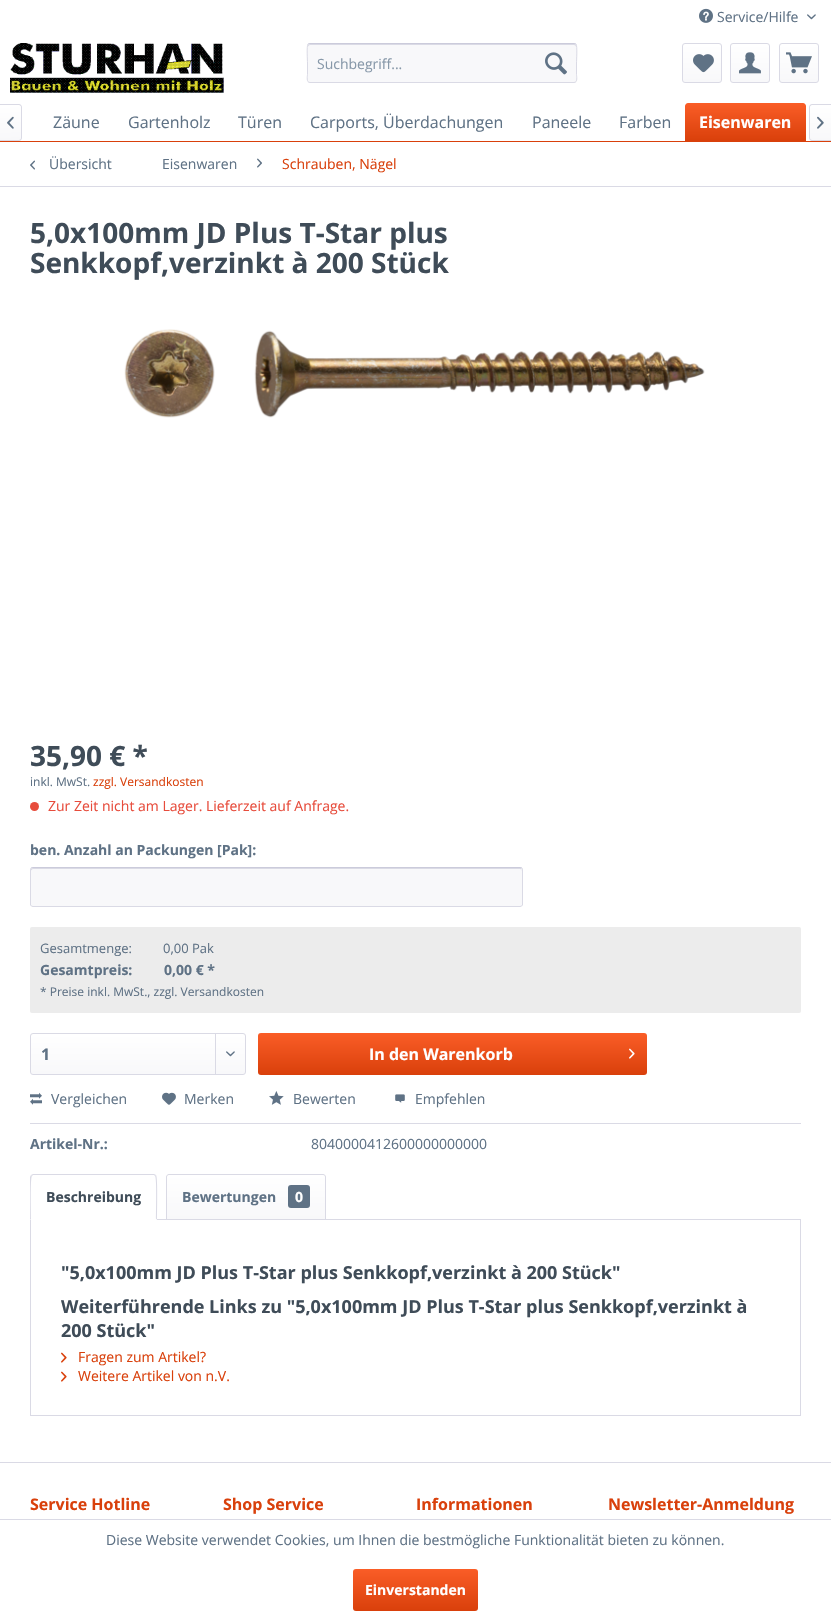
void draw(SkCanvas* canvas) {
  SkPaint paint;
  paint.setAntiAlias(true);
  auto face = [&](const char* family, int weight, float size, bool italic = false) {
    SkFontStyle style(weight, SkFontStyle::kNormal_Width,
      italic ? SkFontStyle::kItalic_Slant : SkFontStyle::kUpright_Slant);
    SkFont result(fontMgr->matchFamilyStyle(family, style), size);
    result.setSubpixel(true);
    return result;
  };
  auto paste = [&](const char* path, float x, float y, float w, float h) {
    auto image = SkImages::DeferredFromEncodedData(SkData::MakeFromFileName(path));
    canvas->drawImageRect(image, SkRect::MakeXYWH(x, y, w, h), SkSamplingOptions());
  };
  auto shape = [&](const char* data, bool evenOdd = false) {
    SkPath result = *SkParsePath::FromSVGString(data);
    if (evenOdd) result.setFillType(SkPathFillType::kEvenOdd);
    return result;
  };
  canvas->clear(0xffffffff);
  paste("img/1.png", 699, 8, 14, 15);
  paste("img/2.png", 807, 14, 9, 6);
  paste("img/3.png", 10, 43, 214, 50);
  paint.setColor(0xfff8f8fa);
  canvas->drawRoundRect(SkRect::MakeXYWH(307, 43, 270, 40), 3, 3, paint);
  paint.setColor(0xffdadae5);
  canvas->drawPath(shape("M310 45H574C575 45 576 46 576 47C576 46 576 44 574 44H310L308 45V47C308 46 309 45 310 45Z"), paint);
  paint.setStroke(true);
  paint.setStrokeWidth(1);
  paint.setColor(0xffcbcbdb);
  canvas->drawPath(shape("M308 44L310 43.5H574L576 44"), paint);
  paint.setColor(0xffdadae5);
  canvas->drawPath(shape("M576 44C577.5 46 576.5 60 576.5 63V74.5C576.5 76 578 82.5 574 82.5H310C306 82.5 307.5 76 307.5 74.5V63C307.5 60 306.5 46 308 44"), paint);
  paste("img/4.png", 545, 52, 22, 23);
  paint.setStroke(false);
  {
    const SkColor colors[] = {0xffffffff, 0xfff8f8fa};
    const float stops[] = {0, 1};
    const SkPoint ends[] = {{702, 44}, {702, 82}};
    paint.setShader(SkGradientShader::MakeLinear(ends, colors, stops, 2, SkTileMode::kClamp));
    paint.setAlpha(255);
  }
  canvas->drawRoundRect(SkRect::MakeXYWH(683, 44, 38, 38), 2, 2, paint);
  paint.setStroke(true);
  paint.setShader(nullptr);
  paint.setColor(0xffdadae5);
  canvas->drawRoundRect(SkRect::MakeXYWH(682.5f, 43.5f, 39, 39), 2.5f, 2.5f, paint);
  paste("img/5.png", 693, 54, 21, 19);
  paint.setStroke(false);
  {
    const SkColor colors[] = {0xffffffff, 0xfff8f8fa};
    const float stops[] = {0, 1};
    const SkPoint ends[] = {{750, 44}, {750, 82}};
    paint.setShader(SkGradientShader::MakeLinear(ends, colors, stops, 2, SkTileMode::kClamp));
    paint.setAlpha(255);
  }
  canvas->drawRoundRect(SkRect::MakeXYWH(731, 44, 38, 38), 2, 2, paint);
  paint.setStroke(true);
  paint.setShader(nullptr);
  paint.setColor(0xffdadae5);
  canvas->drawRoundRect(SkRect::MakeXYWH(730.5f, 43.5f, 39, 39), 2.5f, 2.5f, paint);
  paste("img/6.png", 739, 52, 22, 22);
  paint.setStroke(false);
  {
    const SkColor colors[] = {0xffffffff, 0xfff8f8fa};
    const float stops[] = {0, 1};
    const SkPoint ends[] = {{799, 44}, {799, 82}};
    paint.setShader(SkGradientShader::MakeLinear(ends, colors, stops, 2, SkTileMode::kClamp));
    paint.setAlpha(255);
  }
  canvas->drawRoundRect(SkRect::MakeXYWH(780, 44, 38, 38), 2, 2, paint);
  paint.setStroke(true);
  paint.setShader(nullptr);
  paint.setColor(0xffdadae5);
  canvas->drawRoundRect(SkRect::MakeXYWH(779.5f, 43.5f, 39, 39), 2.5f, 2.5f, paint);
  paste("img/7.png", 786, 52, 26, 22);
  paint.setStroke(false);
  paint.setColor(0xffd9400b);
  canvas->drawRect(SkRect::MakeXYWH(0, 141, 831, 1), paint);
  {
    const SkColor colors[] = {0xffffffff, 0xfff8f8fa};
    const float stops[] = {0, 1};
    const SkPoint ends[] = {{10, 105}, {11, 140}};
    paint.setShader(SkGradientShader::MakeLinear(ends, colors, stops, 2, SkTileMode::kClamp));
    paint.setAlpha(255);
  }
  canvas->drawPath(shape("M0 105H19C20 105 21 106 21 107V138C21 139 20 140 19 140H0Z"), paint);
  paint.setShader(nullptr);
  paint.setColor(0xffdadae5);
  canvas->drawPath(shape("M0 104H19C20.5 104 22 105.5 22 107V138C22 139.5 20.5 141 19 141H0ZM0 105H19C20 105 21 106 21 107V138C21 139 20 140 19 140H0Z", true), paint);
  paste("img/8.png", 7, 116, 7, 13);
  {
    const SkColor colors[] = {0xfffa5d27, 0xffd9400b};
    const float stops[] = {0, 1};
    const SkPoint ends[] = {{746, 103}, {746, 141}};
    paint.setShader(SkGradientShader::MakeLinear(ends, colors, stops, 2, SkTileMode::kClamp));
    paint.setAlpha(255);
  }
  canvas->drawPath(shape("M688 103H803C804.5 103 806 104.5 806 106V141H685V106C685 104.5 686.5 103 688 103Z"), paint);
  {
    const SkColor colors[] = {0xffffffff, 0xfff8f8fa};
    const float stops[] = {0, 1};
    const SkPoint ends[] = {{821, 105}, {821, 140}};
    paint.setShader(SkGradientShader::MakeLinear(ends, colors, stops, 2, SkTileMode::kClamp));
    paint.setAlpha(255);
  }
  canvas->drawPath(shape("M812 105H831V140H812C811 140 810 139 810 138V107C810 106 811 105 812 105Z"), paint);
  paint.setShader(nullptr);
  paint.setColor(0xffdadae5);
  canvas->drawPath(shape("M812 104H831V141H812C810.5 141 809 139.5 809 138V107C809 105.5 810.5 104 812 104ZM812 105H831V140H812C811 140 810 139 810 138V107C810 106 811 105 812 105Z", true), paint);
  paste("img/9.png", 817, 116, 7, 13);
  canvas->drawRect(SkRect::MakeXYWH(0, 186, 831, 1), paint);
  paste("img/10.png", 30, 160, 5, 10);
  paste("img/11.png", 257, 158, 5, 10);
  paste("img/12.png", 124, 329, 581, 89);
  paint.setColor(0xffe74c3c);
  canvas->drawCircle(34.5f, 806.5f, 4.5f, paint);
  paint.setColor(0xfff8f8fa);
  canvas->drawRoundRect(SkRect::MakeXYWH(30, 867, 493, 40), 3, 3, paint);
  paint.setColor(0xffdadae5);
  canvas->drawPath(shape("M33 869H520C521 869 522 870 522 871L521 869V868H276H33L31 869V871C31 870 32 869 33 869Z"), paint);
  paint.setStroke(true);
  paint.setColor(0xffcbcbdb);
  canvas->drawPath(shape("M31 868L33 867.5H520L522 868"), paint);
  paint.setColor(0xffdadae5);
  canvas->drawPath(shape("M522 868L522.5 870V905C522 906 521 906.5 520 906.5H33C32 906.5 31 906 30.5 905V870L31 868"), paint);
  paint.setStroke(false);
  paint.setColor(0xffececec);
  canvas->drawRoundRect(SkRect::MakeXYWH(30, 927, 771, 86), 2, 2, paint);
  {
    const SkColor colors[] = {0xffffffff, 0xfff8f8fa};
    const float stops[] = {0, 1};
    const SkPoint ends[] = {{138, 1034}, {138, 1074}};
    paint.setShader(SkGradientShader::MakeLinear(ends, colors, stops, 2, SkTileMode::kClamp));
    paint.setAlpha(255);
  }
  canvas->drawRoundRect(SkRect::MakeXYWH(31, 1034, 214, 40), 2, 2, paint);
  paint.setStroke(true);
  paint.setShader(nullptr);
  paint.setColor(0xffdadae5);
  canvas->drawRoundRect(SkRect::MakeXYWH(30.5f, 1033.5f, 215, 41), 2.5f, 2.5f, paint);
  paint.setStroke(false);
  canvas->drawRect(SkRect::MakeXYWH(215, 1034, 1, 40), paint);
  paste("img/13.png", 226, 1051, 9, 6);
  {
    const SkColor colors[] = {0xfffa5d27, 0xffd9400b};
    const float stops[] = {0, 1};
    const SkPoint ends[] = {{453, 1033}, {453, 1075}};
    paint.setShader(SkGradientShader::MakeLinear(ends, colors, stops, 2, SkTileMode::kClamp));
    paint.setAlpha(255);
  }
  canvas->drawRoundRect(SkRect::MakeXYWH(258, 1033, 389, 42), 3, 3, paint);
  paste("img/14.png", 629, 1048, 6, 11);
  paint.setShader(nullptr);
  paint.setColor(0xffdadae5);
  canvas->drawRect(SkRect::MakeXYWH(30, 1123, 771, 1), paint);
  paste("img/15.png", 30, 1092, 12, 13);
  paste("img/16.png", 162, 1092, 14, 13);
  paste("img/17.png", 269, 1091, 15, 14);
  paste("img/18.png", 395, 1094, 10, 9);
  paint.setStroke(true);
  canvas->drawRect(SkRect::MakeXYWH(30.5f, 1219.5f, 770, 196), paint);
  paint.setStroke(false);
  paint.setColor(0xffffffff);
  canvas->drawPath(shape("M33 1174H154C155.5 1174 157 1175.5 157 1177V1220H30V1177C30 1175.5 31.5 1174 33 1174Z"), paint);
  paint.setColor(0xffdadae5);
  canvas->drawPath(shape("M33 1174L31 1175L32 1176L33 1175H154L155 1176L156 1175L154 1174Z"), paint);
  canvas->drawPath(shape("M157 1220C157 1215 158 1177 156 1175L155 1176C157 1177 156 1214 156 1219Z"), paint);
  paint.setColor(0xffffffff);
  canvas->drawPath(shape("M157 1220L156 1219H31L30 1220Z"), paint);
  paint.setColor(0xffdadae5);
  canvas->drawPath(shape("M30 1220L31 1219C31 1214 30 1177 32 1176L31 1175L30 1177Z"), paint);
  {
    const SkColor colors[] = {0xffffffff, 0xfff8f8fa};
    const float stops[] = {0, 1};
    const SkPoint ends[] = {{246, 1175}, {246, 1219}};
    paint.setShader(SkGradientShader::MakeLinear(ends, colors, stops, 2, SkTileMode::kClamp));
    paint.setAlpha(255);
  }
  canvas->drawPath(shape("M169 1175H323C324 1175 325 1176 325 1177V1219H167V1177C167 1176 168 1175 169 1175Z"), paint);
  paint.setStroke(true);
  paint.setShader(nullptr);
  paint.setColor(0xffdadae5);
  canvas->drawPath(shape("M169 1174.5H323C324.5 1174.5 325.5 1175.5 325.5 1177V1219.5H166.5V1177C166.5 1175.5 167.5 1174.5 169 1174.5Z"), paint);
  paint.setStroke(false);
  paint.setColor(0xff5f7285);
  canvas->drawRoundRect(SkRect::MakeXYWH(288, 1185, 22, 23), 3, 3, paint);
  paste("img/19.png", 61, 1352, 6, 11);
  paste("img/19.png", 61, 1371, 6, 11);
  paint.setColor(0xffdadae5);
  canvas->drawRect(SkRect::MakeXYWH(0, 1462, 831, 1), paint);
  canvas->drawRect(SkRect::MakeXYWH(0, 1519, 831, 1), paint);
  {
    const SkColor colors[] = {0xfffa5d27, 0xffd9400b};
    const float stops[] = {0, 1};
    const SkPoint ends[] = {{416, 1569}, {416, 1611}};
    paint.setShader(SkGradientShader::MakeLinear(ends, colors, stops, 2, SkTileMode::kClamp));
    paint.setAlpha(255);
  }
  canvas->drawRoundRect(SkRect::MakeXYWH(353, 1569, 125, 42), 3, 3, paint);
  auto f0 = face("Open Sans", 400, 14);
  paint.setShader(nullptr);
  paint.setColor(0xff5f7285);
  canvas->drawString("Service/Hilfe", 717, 22, f0, paint);
  paint.setColor(0xff8798a9);
  canvas->drawString("Suchbegriff...", 317, 69, f0, paint);
  auto f1 = face("Open Sans", 400, 16);
  paint.setColor(0xff5f7285);
  {
    const struct { const char* s; float x, y; } items[] = {
      {"Zäune", 53, 128},
      {"Gartenholz", 128, 128},
      {"Türen", 238, 128},
      {"Carports, Überdachungen", 310, 128},
      {"Paneele", 532, 128},
      {"Farben", 619, 128},
    };
    for (auto [s, x, y] : items) {
      canvas->drawString(s, x, y, f1, paint);
    }
  }
  auto f2 = face("Open Sans", 700, 16);
  paint.setColor(0xffffffff);
  canvas->drawString("Eisenwaren", 699, 128, f2, paint);
  paint.setColor(0xff5f7285);
  canvas->drawString("Übersicht", 49, 169, f0, paint);
  canvas->drawString("Eisenwaren", 162, 169, f0, paint);
  paint.setColor(0xffd9400b);
  canvas->drawString("Schrauben, Nägel", 282, 169, f0, paint);
  auto f3 = face("Open Sans", 700, 28);
  paint.setColor(0xff3f4c58);
  {
    const struct { const char* s; float x, y; } items[] = {
      {"5,0x100mm JD Plus T-Star plus", 30, 243},
      {"Senkkopf,verzinkt à 200 Stück", 30, 273},
      {"35,90 € *", 30, 766},
    };
    for (auto [s, x, y] : items) {
      canvas->drawString(s, x, y, f3, paint);
    }
  }
  auto f4 = face("Open Sans", 400, 12);
  paint.setColor(0xff5f7285);
  canvas->drawString("inkl. MwSt.", 30, 786, f4, paint);
  paint.setColor(0xffd9400b);
  canvas->drawString("zzgl. Versandkosten", 93, 786, f4, paint);
  paint.setColor(0xffe74c3c);
  canvas->drawString("Zur Zeit nicht am Lager. Lieferzeit auf Anfrage.", 48, 811, f0, paint);
  auto f5 = face("Open Sans", 700, 14);
  paint.setColor(0xff5f7285);
  canvas->drawString("ben. Anzahl an Packungen [Pak]:", 30, 855, f5, paint);
  auto f6 = face("Open Sans", 400, 13);
  canvas->drawString("Gesamtmenge:", 40, 953, f6, paint);
  canvas->drawString("0,00 Pak", 163, 953, f6, paint);
  canvas->drawString("Gesamtpreis:", 40, 975, f5, paint);
  canvas->drawString("0,00 € *", 164, 975, f5, paint);
  canvas->drawString("* Preise inkl. MwSt., zzgl. Versandkosten", 40, 996, f4, paint);
  canvas->drawString("1", 41, 1060, f2, paint);
  paint.setColor(0xffffffff);
  canvas->drawString("In den Warenkorb", 369, 1060, f2, paint);
  paint.setColor(0xff5f7285);
  {
    const struct { const char* s; float x, y; } items[] = {
      {"Vergleichen", 51, 1104},
      {"Merken", 184, 1104},
      {"Bewerten", 293, 1104},
      {"Empfehlen", 415, 1104},
    };
    for (auto [s, x, y] : items) {
      canvas->drawString(s, x, y, f0, paint);
    }
  }
  canvas->drawString("Artikel-Nr.:", 30, 1149, f5, paint);
  canvas->drawString("8040000412600000000000", 311, 1149, f0, paint);
  paint.setColor(0xff3f4c58);
  canvas->drawString("Beschreibung", 46, 1202, f5, paint);
  paint.setColor(0xff5f7285);
  canvas->drawString("Bewertungen", 182, 1202, f5, paint);
  paint.setColor(0xffffffff);
  canvas->drawString("0", 295, 1202, f5, paint);
  auto f7 = face("Open Sans", 700, 18);
  paint.setColor(0xff3f4c58);
  {
    const struct { const char* s; float x, y; } items[] = {
      {"\"5,0x100mm JD Plus T-Star plus Senkkopf,verzinkt à 200 Stück\"", 61, 1279},
      {"Weiterführende Links zu \"5,0x100mm JD Plus T-Star plus Senkkopf,verzinkt à", 61, 1313},
      {"200 Stück\"", 61, 1337},
    };
    for (auto [s, x, y] : items) {
      canvas->drawString(s, x, y, f7, paint);
    }
  }
  paint.setColor(0xffd9400b);
  canvas->drawString("Fragen zum Artikel?", 78, 1362, f0, paint);
  canvas->drawString("Weitere Artikel von n.V.", 78, 1381, f0, paint);
  {
    const struct { const char* s; float x, y; } items[] = {
      {"Service Hotline", 30, 1510},
      {"Shop Service", 223, 1510},
      {"Informationen", 416, 1510},
      {"Newsletter-Anmeldung", 608, 1510},
    };
    for (auto [s, x, y] : items) {
      canvas->drawString(s, x, y, f2, paint);
    }
  }
  paint.setColor(0xff5f7285);
  canvas->drawString("Diese Website verwendet Cookies, um Ihnen die bestmögliche Funktionalität bieten zu können.", 106, 1545, f0, paint);
  paint.setColor(0xffffffff);
  canvas->drawString("Einverstanden", 365, 1595, f5, paint);
}
